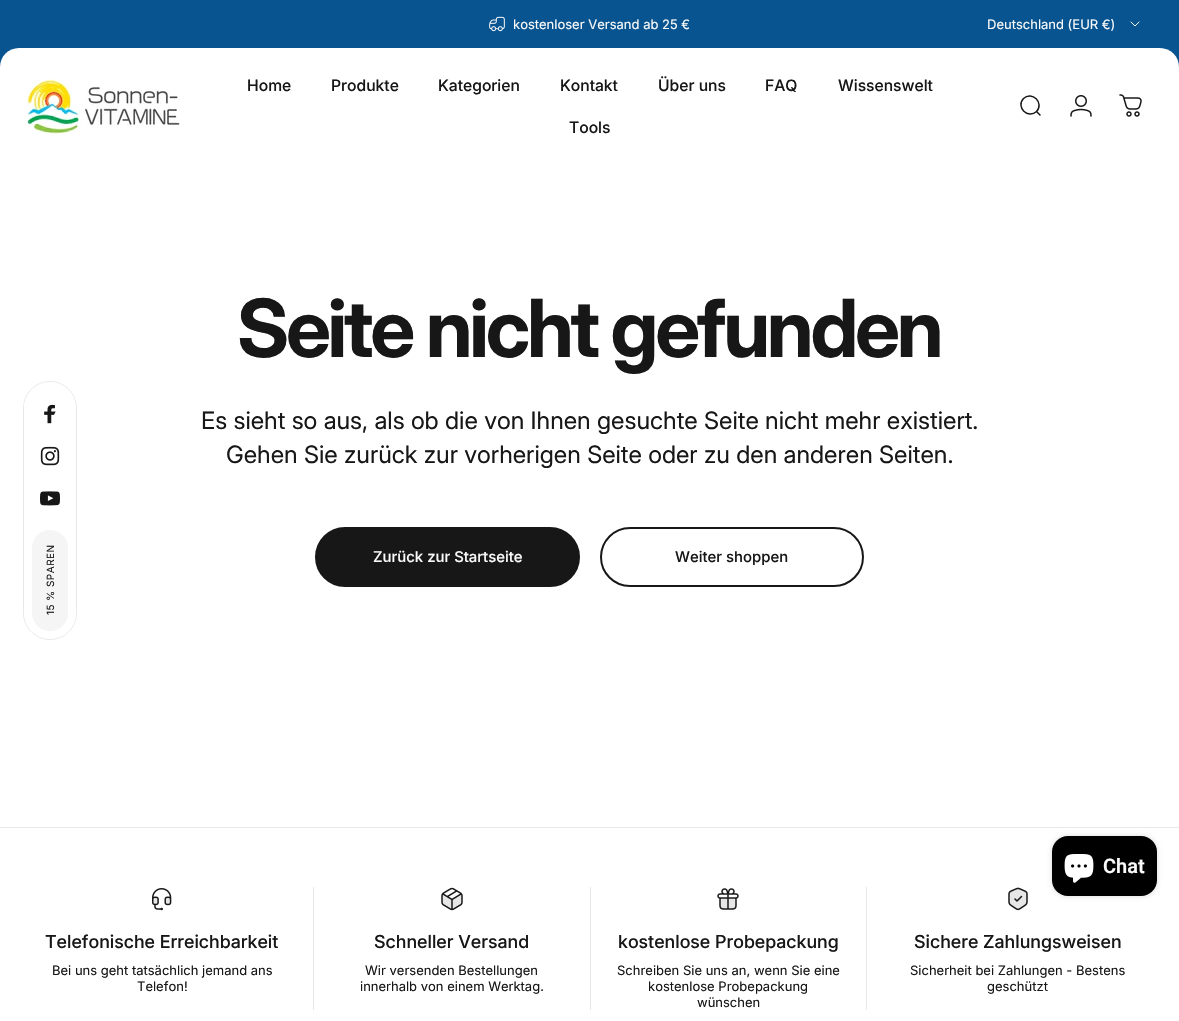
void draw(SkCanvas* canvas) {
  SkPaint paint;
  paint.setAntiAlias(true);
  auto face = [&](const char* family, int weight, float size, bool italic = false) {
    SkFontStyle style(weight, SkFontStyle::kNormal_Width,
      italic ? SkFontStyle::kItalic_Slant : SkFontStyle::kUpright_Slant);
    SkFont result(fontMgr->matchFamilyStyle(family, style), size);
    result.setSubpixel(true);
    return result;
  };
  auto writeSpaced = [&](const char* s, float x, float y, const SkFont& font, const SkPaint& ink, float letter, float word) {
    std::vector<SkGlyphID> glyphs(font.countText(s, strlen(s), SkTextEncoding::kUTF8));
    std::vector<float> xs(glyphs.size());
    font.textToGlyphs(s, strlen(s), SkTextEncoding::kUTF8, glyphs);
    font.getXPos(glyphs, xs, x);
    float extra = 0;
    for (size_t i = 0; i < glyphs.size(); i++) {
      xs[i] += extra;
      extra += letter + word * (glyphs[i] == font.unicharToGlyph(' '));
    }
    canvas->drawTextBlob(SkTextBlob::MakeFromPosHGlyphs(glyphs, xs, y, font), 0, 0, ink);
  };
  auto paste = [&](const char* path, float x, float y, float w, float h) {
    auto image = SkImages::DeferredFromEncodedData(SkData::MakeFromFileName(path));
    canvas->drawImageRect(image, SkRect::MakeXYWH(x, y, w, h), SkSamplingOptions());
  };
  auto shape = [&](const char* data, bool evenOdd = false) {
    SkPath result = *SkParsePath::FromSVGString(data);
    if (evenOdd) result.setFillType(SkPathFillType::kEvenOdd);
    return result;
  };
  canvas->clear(0xffffffff);
  paint.setColor(0xff085490);
  canvas->drawRect(SkRect::MakeXYWH(0, 0, 1179, 19), paint);
  canvas->drawPath(shape("M19 0H1160C1170.5 0 1179 8.5 1179 19V67H0V19C0 8.5 8.5 0 19 0Z"), paint);
  paste("img/1.png", 489, 16, 16, 16);
  paint.setStroke(true);
  paint.setStrokeWidth(1);
  paint.setStrokeCap(SkPaint::kRound_Cap);
  paint.setStrokeJoin(SkPaint::kRound_Join);
  paint.setColor(0xfffafafa);
  canvas->drawPath(shape("M1131 22L1135 26L1139 22"), paint);
  paint.setStroke(false);
  paint.setColor(0xffffffff);
  canvas->drawPath(shape("M19 48H1160C1170.5 48 1179 56.5 1179 67V164H0V67C0 56.5 8.5 48 19 48Z"), paint);
  paste("img/2.png", 26, 79, 154, 56);
  paint.setStroke(true);
  paint.setStrokeWidth(1.5f);
  paint.setStrokeJoin(SkPaint::kMiter_Join);
  paint.setColor(0xff171717);
  canvas->drawPath(shape("M1040 115L1036.5 111.5M1036.5 111.5C1044.5 103 1032 90.5 1023.5 98.5C1015.5 107 1028 119.5 1036.5 111.5Z"), paint);
  paste("img/3.png", 1070, 95, 22, 22);
  paste("img/4.png", 1119, 94, 23, 23);
  paint.setStroke(false);
  canvas->drawRoundRect(SkRect::MakeXYWH(316, 528, 263, 58), 29, 29, paint);
  paint.setStroke(true);
  paint.setStrokeWidth(2);
  paint.setStrokeCap(SkPaint::kButt_Cap);
  canvas->drawRoundRect(SkRect::MakeXYWH(316, 528, 263, 58), 29, 29, paint);
  canvas->drawRoundRect(SkRect::MakeXYWH(601, 528, 262, 58), 29, 29, paint);
  paint.setStroke(false);
  paint.setColor(0xffe8e8e8);
  canvas->drawRect(SkRect::MakeXYWH(0, 827, 1179, 1), paint);
  paste("img/5.png", 152, 888, 20, 23);
  canvas->drawRect(SkRect::MakeXYWH(313, 887, 1, 123), paint);
  paste("img/6.png", 441, 887, 22, 24);
  canvas->drawRect(SkRect::MakeXYWH(590, 887, 1, 123), paint);
  paste("img/7.png", 717, 888, 22, 22);
  canvas->drawRect(SkRect::MakeXYWH(866, 887, 1, 123), paint);
  paste("img/8.png", 1008, 887, 20, 24);
  paint.setStroke(true);
  paint.setStrokeWidth(1);
  canvas->drawRoundRect(SkRect::MakeXYWH(23.5f, 381.5f, 53, 258), 26.5f, 26.5f, paint);
  paint.setStroke(false);
  paint.setColor(0xccffffff);
  canvas->drawRoundRect(SkRect::MakeXYWH(24, 382, 52, 257), 26, 26, paint);
  paste("img/9.png", 44, 404, 12, 20);
  paste("img/10.png", 40, 446, 20, 20);
  paste("img/11.png", 40, 491, 20, 15);
  paint.setColor(0xfff5f5f5);
  canvas->drawPath(shape("M50 631C40 631 32 623 32 613V548C32 538 40 530 50 530C60 530 68 538 68 548V613C68 623 60 631 50 631Z"), paint);
  paint.setColor(0x26000000);
  paint.setMaskFilter(SkMaskFilter::MakeBlur(kNormal_SkBlurStyle, 2.5f));
  canvas->drawRoundRect(SkRect::MakeXYWH(1052, 836, 105, 60), 16, 16, paint);
  paint.setMaskFilter(nullptr);
  paint.setColor(0xff000000);
  canvas->drawRoundRect(SkRect::MakeXYWH(1052, 836, 105, 60), 16, 16, paint);
  paste("img/12.png", 1064, 854, 30, 29);
  auto f0 = face("Inter", 400, 13);
  paint.setColor(0xfffafafa);
  canvas->drawString("kostenloser Versand ab 25 €", 513, 29, f0, paint);
  canvas->drawString("Deutschland (EUR €)", 987, 29, f0, paint);
  auto f1 = face("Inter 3", 500, 15.75f);
  paint.setColor(0xff171717);
  {
    const struct { const char* s; float x, y; } items[] = {
      {"Home", 247, 91},
      {"Produkte", 331, 91},
      {"Kategorien", 438, 91},
      {"Kontakt", 560, 91},
      {"Über uns", 658, 91},
      {"FAQ", 765, 91},
      {"Wissenswelt", 838, 91},
      {"Tools", 569, 133},
    };
    for (auto [s, x, y] : items) {
      canvas->drawString(s, x, y, f1, paint);
    }
  }
  auto f2 = face("Inter", 700, 80);
  writeSpaced("Seite nicht gefunden", 237, 357, f2, paint, -3.25f, 0);
  auto f3 = face("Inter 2", 400, 24);
  canvas->drawString("Es sieht so aus, als ob die von Ihnen gesuchte Seite nicht mehr existiert.", 201, 429, f3, paint);
  canvas->drawString("Gehen Sie zurück zur vorherigen Seite oder zu den anderen Seiten.", 226, 463, f3, paint);
  auto f4 = face("Inter 2", 500, 14.9f);
  paint.setColor(0xfffafafa);
  canvas->drawString("Zurück zur Startseite", 373, 562, f4, paint);
  paint.setColor(0xff171717);
  canvas->drawString("Weiter shoppen", 675, 562, f4, paint);
  auto f5 = face("Inter", 500, 18);
  canvas->drawString("Telefonische Erreichbarkeit", 45, 948, f5, paint);
  canvas->drawString("Bei uns geht tatsächlich jemand ans", 52, 975, f0, paint);
  canvas->drawString("Telefon!", 137, 991, f0, paint);
  canvas->drawString("Schneller Versand", 374, 948, f5, paint);
  canvas->drawString("Wir versenden Bestellungen", 365, 975, f0, paint);
  canvas->drawString("innerhalb von einem Werktag.", 360, 991, f0, paint);
  canvas->drawString("kostenlose Probepackung", 618, 948, f5, paint);
  {
    const struct { const char* s; float x, y; } items[] = {
      {"Schreiben Sie uns an, wenn Sie eine", 617, 975},
      {"kostenlose Probepackung", 648, 991},
      {"wünschen", 697, 1007},
    };
    for (auto [s, x, y] : items) {
      canvas->drawString(s, x, y, f0, paint);
    }
  }
  canvas->drawString("Sichere Zahlungsweisen", 914, 948, f5, paint);
  canvas->drawString("Sicherheit bei Zahlungen - Bestens", 910, 975, f0, paint);
  canvas->drawString("geschützt", 987, 991, f0, paint);
  auto f6 = face("Inter", 400, 10);
  canvas->save();
  canvas->rotate(-90, 54, 615);
  writeSpaced("15 % SPAREN", 54, 615, f6, paint, 0.5f, 0);
  canvas->restore();
  auto f7 = face("Roboto", 600, 20);
  paint.setColor(0xfffafafa);
  canvas->drawString("Chat", 1103, 873, f7, paint);
}
